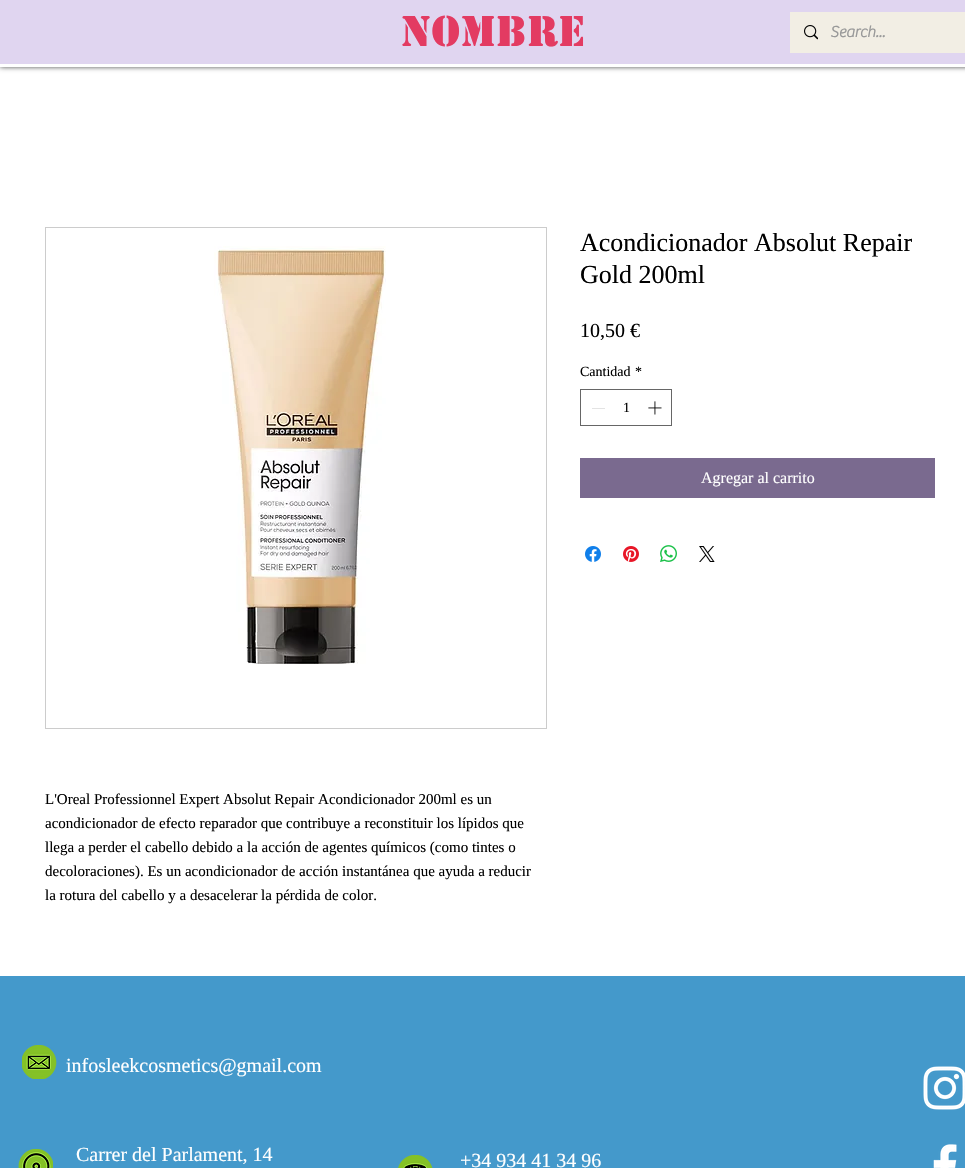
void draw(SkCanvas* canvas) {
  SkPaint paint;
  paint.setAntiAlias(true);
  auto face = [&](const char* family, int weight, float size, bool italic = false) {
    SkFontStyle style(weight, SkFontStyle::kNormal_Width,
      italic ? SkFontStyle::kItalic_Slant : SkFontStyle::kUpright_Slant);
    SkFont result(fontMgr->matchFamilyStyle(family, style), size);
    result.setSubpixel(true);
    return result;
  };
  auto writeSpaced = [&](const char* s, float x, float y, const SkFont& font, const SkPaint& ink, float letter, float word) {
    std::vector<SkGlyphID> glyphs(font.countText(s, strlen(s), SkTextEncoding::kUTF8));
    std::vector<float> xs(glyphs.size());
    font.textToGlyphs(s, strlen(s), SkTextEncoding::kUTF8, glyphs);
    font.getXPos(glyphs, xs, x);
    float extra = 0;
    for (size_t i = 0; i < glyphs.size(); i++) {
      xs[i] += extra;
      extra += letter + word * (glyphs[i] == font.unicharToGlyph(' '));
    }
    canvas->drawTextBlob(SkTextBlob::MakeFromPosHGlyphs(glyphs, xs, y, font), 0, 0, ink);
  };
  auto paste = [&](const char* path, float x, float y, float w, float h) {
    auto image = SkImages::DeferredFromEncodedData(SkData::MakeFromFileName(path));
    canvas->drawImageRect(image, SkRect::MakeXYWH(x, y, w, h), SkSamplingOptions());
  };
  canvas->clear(0xffffffff);
  paint.setColor(0xb3000000);
  paint.setMaskFilter(SkMaskFilter::MakeBlur(kNormal_SkBlurStyle, 2.5f));
  canvas->drawRect(SkRect::MakeXYWH(0, 0, 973, 67), paint);
  paint.setMaskFilter(nullptr);
  {
    const struct { float x, y, w, h; SkColor color; } items[] = {
      {0, 0, 965, 64, 0xffe0d5f0},
      {0, 64, 965, 3, 0xffffffff},
      {790, 12, 175, 41, 0xfff2eee4},
    };
    for (auto [x, y, w, h, color] : items) {
      paint.setColor(color);
      canvas->drawRect(SkRect::MakeXYWH(x, y, w, h), paint);
    }
  }
  paste("img/1.png", 804, 25, 14, 15);
  paint.setStroke(true);
  paint.setStrokeWidth(1);
  paint.setColor(0xff666666);
  canvas->drawRect(SkRect::MakeXYWH(580.5f, 389.5f, 91, 36), paint);
  paint.setStroke(false);
  paint.setColor(0xffe3e3e3);
  canvas->drawRect(SkRect::MakeXYWH(592, 408, 13, 1), paint);
  paste("img/2.png", 648, 401, 14, 14);
  paint.setColor(0xff7a6a8f);
  canvas->drawRect(SkRect::MakeXYWH(580, 458, 355, 40), paint);
  paste("img/3.png", 585, 546, 16, 16);
  paste("img/4.png", 623, 546, 16, 16);
  paste("img/5.png", 660, 545, 17, 17);
  paste("img/6.png", 699, 546, 16, 16);
  paint.setStroke(true);
  paint.setColor(0xffcccccc);
  canvas->drawRect(SkRect::MakeXYWH(45.5f, 227.5f, 501, 501), paint);
  paste("img/7.png", 214, 246, 172, 418);
  paint.setStroke(false);
  paint.setColor(0xff4499cb);
  canvas->drawRect(SkRect::MakeXYWH(0, 976, 965, 192), paint);
  paste("img/8.png", 22, 1045, 35, 34);
  paste("img/9.png", 923, 1066, 42, 44);
  paste("img/10.png", 933, 1144, 24, 24);
  paste("img/11.png", 18, 1149, 35, 19);
  paste("img/12.png", 398, 1155, 35, 13);
  auto f0 = face("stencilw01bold", 700, 40);
  paint.setColor(0xffe33b62);
  writeSpaced("Nombre", 401, 46, f0, paint, 0.5f, 0);
  auto f1 = face("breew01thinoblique", 700, 16);
  paint.setColor(0xff999999);
  canvas->drawString("Search...", 830, 37, f1, paint);
  auto f2 = face("Liberation Serif", 400, 26);
  paint.setColor(0xff000000);
  canvas->drawString("Acondicionador Absolut Repair", 580, 251, f2, paint);
  canvas->drawString("Gold 200ml", 580, 283, f2, paint);
  auto f3 = face("Liberation Serif", 400, 20);
  canvas->drawString("10,50 €", 580, 337, f3, paint);
  auto f4 = face("Liberation Serif", 400, 14);
  {
    const struct { const char* s; float x, y; } items[] = {
      {"Cantidad", 580, 376},
      {"*", 635, 376},
      {"1", 623, 412},
    };
    for (auto [s, x, y] : items) {
      canvas->drawString(s, x, y, f4, paint);
    }
  }
  auto f5 = face("Liberation Serif", 400, 16);
  paint.setColor(0xffffffff);
  canvas->drawString("Agregar al carrito", 701, 483, f5, paint);
  auto f6 = face("Liberation Serif", 400, 15);
  paint.setColor(0xff000000);
  {
    const struct { const char* s; float x, y; } items[] = {
      {"L'Oreal Professionnel Expert Absolut Repair Acondicionador 200ml es un", 45, 804},
      {"acondicionador de efecto reparador que contribuye a reconstituir los lípidos que", 45, 828},
      {"llega a perder el cabello debido a la acción de agentes químicos (como tintes o", 45, 852},
      {"decoloraciones). Es un acondicionador de acción instantánea que ayuda a reducir", 45, 876},
      {"la rotura del cabello y a desacelerar la pérdida de color.", 45, 900},
    };
    for (auto [s, x, y] : items) {
      canvas->drawString(s, x, y, f6, paint);
    }
  }
  paint.setColor(0xffffffff);
  {
    const struct { const char* s; float x, y; } items[] = {
      {"infosleekcosmetics@gmail.com", 66, 1072},
      {"Carrer del Parlament, 14", 76, 1161},
      {"+34 934 41 34 96", 460, 1167},
    };
    for (auto [s, x, y] : items) {
      canvas->drawString(s, x, y, f3, paint);
    }
  }
}
